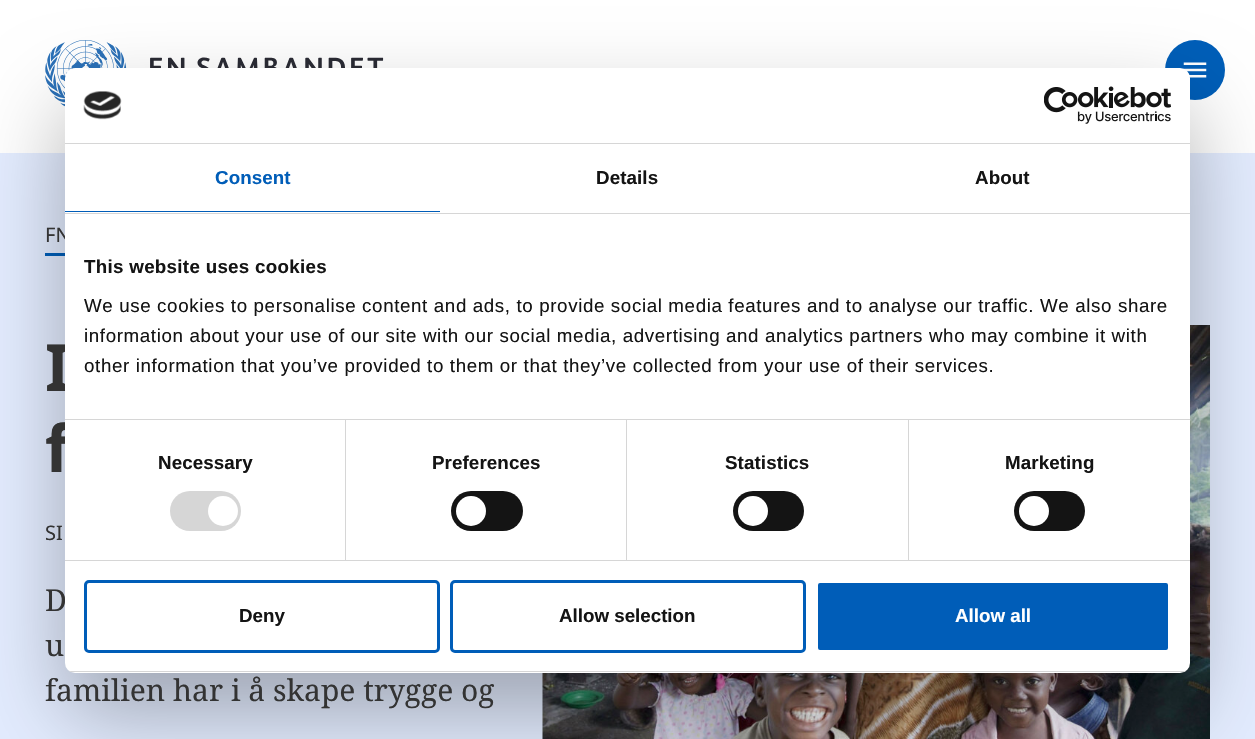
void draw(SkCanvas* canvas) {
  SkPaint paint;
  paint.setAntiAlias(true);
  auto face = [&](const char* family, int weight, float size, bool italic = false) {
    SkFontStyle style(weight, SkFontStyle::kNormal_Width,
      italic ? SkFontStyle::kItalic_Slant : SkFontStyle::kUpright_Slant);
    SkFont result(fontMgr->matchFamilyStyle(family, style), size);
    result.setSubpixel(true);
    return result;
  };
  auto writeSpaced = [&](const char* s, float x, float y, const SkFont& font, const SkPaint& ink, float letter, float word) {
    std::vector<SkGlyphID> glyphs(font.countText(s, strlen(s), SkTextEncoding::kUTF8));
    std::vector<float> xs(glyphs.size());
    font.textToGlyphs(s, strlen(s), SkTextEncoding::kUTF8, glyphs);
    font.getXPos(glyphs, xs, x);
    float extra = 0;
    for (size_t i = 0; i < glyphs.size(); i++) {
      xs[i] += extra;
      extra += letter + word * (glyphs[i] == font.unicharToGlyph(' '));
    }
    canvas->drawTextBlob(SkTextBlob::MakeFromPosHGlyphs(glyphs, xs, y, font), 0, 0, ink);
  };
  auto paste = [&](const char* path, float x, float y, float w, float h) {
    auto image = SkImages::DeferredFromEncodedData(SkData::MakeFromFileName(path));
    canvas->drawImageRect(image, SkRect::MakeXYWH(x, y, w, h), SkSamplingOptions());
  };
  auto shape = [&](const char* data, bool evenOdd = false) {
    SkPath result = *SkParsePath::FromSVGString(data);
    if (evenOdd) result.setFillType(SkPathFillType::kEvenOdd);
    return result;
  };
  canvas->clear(0xffffffff);
  paste("img/1.png", 45, 40, 339, 67);
  paint.setColor(0xff005eb8);
  canvas->drawCircle(1195, 70, 30, paint);
  paste("img/2.png", 1183, 62, 24, 16);
  paint.setColor(0xffe3ecff);
  canvas->drawRect(SkRect::MakeXYWH(0, 153, 1255, 586), paint);
  paint.setColor(0xff005eb8);
  canvas->drawRect(SkRect::MakeXYWH(45, 253, 20, 3), paint);
  paste("img/5.png", 542, 325, 668, 414);
  paint.setColor(0x4d000000);
  paint.setMaskFilter(SkMaskFilter::MakeBlur(kNormal_SkBlurStyle, 42.5f));
  canvas->drawRoundRect(SkRect::MakeXYWH(65, 108, 1125, 605), 10, 10, paint);
  paint.setMaskFilter(nullptr);
  auto f0 = face("Noto Sans", 400, 20);
  paint.setColor(0xff333333);
  canvas->drawString("FN", 45, 242, f0, paint);
  auto f1 = face("Noto Sans", 700, 65);
  canvas->drawString("I", 45, 391, f1, paint);
  canvas->drawString("f", 45, 472, f1, paint);
  canvas->drawString("SI", 45, 540, f0, paint);
  auto f2 = face("Noto Serif", 400, 30);
  canvas->drawString("D", 45, 611, f2, paint);
  paint.setColor(0xffffffff);
  canvas->drawRoundRect(SkRect::MakeXYWH(65, 68, 1125, 605), 10, 10, paint);
  paint.setColor(0xff005db8);
  canvas->drawRoundRect(SkRect::MakeXYWH(816.5f, 581.5f, 353, 70), 3.5f, 3.5f, paint);
  paint.setStroke(true);
  paint.setStrokeWidth(3);
  paint.setColor(0xffffffff);
  canvas->drawRoundRect(SkRect::MakeXYWH(816.5f, 581.5f, 353, 70), 3.5f, 3.5f, paint);
  auto f3 = face("Liberation Sans", 700, 18.75f);
  paint.setStroke(false);
  canvas->drawString("Allow all", 955, 622, f3, paint);
  paint.setStroke(true);
  paint.setColor(0xff005db8);
  canvas->drawRoundRect(SkRect::MakeXYWH(451.5f, 581.5f, 353, 70), 3.5f, 3.5f, paint);
  paint.setStroke(false);
  paint.setColor(0xff141414);
  canvas->drawString("Allow selection", 559, 622, f3, paint);
  paint.setStroke(true);
  paint.setColor(0xff005db8);
  canvas->drawRoundRect(SkRect::MakeXYWH(85.5f, 581.5f, 353, 70), 3.5f, 3.5f, paint);
  paint.setStroke(false);
  paint.setColor(0xff141414);
  canvas->drawString("Deny", 239, 622, f3, paint);
  canvas->save();
  canvas->clipPath(shape("M75 68H1180C1185.5 68 1190 72.5 1190 78V663C1190 668.5 1185.5 673 1180 673H75C69.5 673 65 668.5 65 663V78C65 72.5 69.5 68 75 68Z"), true);
  paint.setColor(0xffd6d6d6);
  canvas->drawRect(SkRect::MakeXYWH(65, 671, 1125, 1), paint);
  canvas->restore();
  paint.setColor(0xff141414);
  canvas->drawRoundRect(SkRect::MakeXYWH(1014, 491, 71, 40), 20, 20, paint);
  paint.setColor(0xffffffff);
  canvas->drawCircle(1034, 511, 15, paint);
  paint.setColor(0xff141414);
  canvas->drawRoundRect(SkRect::MakeXYWH(733, 491, 71, 40), 20, 20, paint);
  paint.setColor(0xffffffff);
  canvas->drawCircle(753, 511, 15, paint);
  paint.setColor(0xff141414);
  canvas->drawRoundRect(SkRect::MakeXYWH(451, 491, 72, 40), 20, 20, paint);
  paint.setColor(0xffffffff);
  canvas->drawCircle(471, 511, 15, paint);
  paint.setColor(0xffd6d6d6);
  canvas->drawRoundRect(SkRect::MakeXYWH(170, 491, 71, 40), 20, 20, paint);
  paint.setColor(0xffffffff);
  canvas->drawCircle(223, 511, 15, paint);
  auto f4 = face("Liberation Sans", 400, 18.75f);
  paint.setColor(0xff141414);
  {
    const struct { const char* s; float x, y; } items[] = {
      {"other information that you’ve provided to them or that they’ve collected from your use of their services.", 84, 372},
      {"information about your use of our site with our social media, advertising and analytics partners who may combine it with", 84, 342},
      {"We use cookies to personalise content and ads, to provide social media features and to analyse our traffic. We also share", 84, 312},
    };
    for (auto [s, x, y] : items) {
      writeSpaced(s, x, y, f4, paint, 0.62f, 0);
    }
  }
  writeSpaced("This website uses cookies", 84, 273, f3, paint, 0.3f, 0);
  paint.setColor(0xffd6d6d6);
  canvas->drawRect(SkRect::MakeXYWH(65, 419, 1125, 1), paint);
  paint.setColor(0xff141414);
  writeSpaced("About", 975, 184, f3, paint, 0.1f, 0);
  writeSpaced("Details", 596, 184, f3, paint, 0.1f, 0);
  paint.setColor(0xff005db8);
  writeSpaced("Consent", 215, 184, f3, paint, 0.1f, 0);
  canvas->drawRect(SkRect::MakeXYWH(65, 211, 375, 1), paint);
  paint.setColor(0xffd6d6d6);
  canvas->drawRect(SkRect::MakeXYWH(65, 213, 1125, 1), paint);
  paint.setColor(0xff141414);
  writeSpaced("Marketing", 1005, 469, f3, paint, 0.1f, 0);
  writeSpaced("Statistics", 725, 469, f3, paint, 0.1f, 0);
  paint.setColor(0xffd6d6d6);
  canvas->drawRect(SkRect::MakeXYWH(908, 420, 1, 140), paint);
  paint.setColor(0xff141414);
  writeSpaced("Preferences", 432, 469, f3, paint, 0.1f, 0);
  paint.setColor(0xffd6d6d6);
  canvas->drawRect(SkRect::MakeXYWH(626, 420, 1, 140), paint);
  paint.setColor(0xff141414);
  writeSpaced("Necessary", 158, 469, f3, paint, 0.1f, 0);
  paint.setColor(0xffd6d6d6);
  canvas->drawRect(SkRect::MakeXYWH(345, 420, 1, 140), paint);
  canvas->drawRect(SkRect::MakeXYWH(65, 560, 1125, 1), paint);
  paste("img/4.png", 1044, 86, 127, 38);
  paste("img/3.png", 83, 91, 39, 29);
  canvas->drawRect(SkRect::MakeXYWH(65, 143, 1125, 1), paint);
  paint.setColor(0xff333333);
  canvas->drawString("u", 45, 656, f2, paint);
  canvas->drawString("familien har i å skape trygge og", 45, 701, f2, paint);
}
